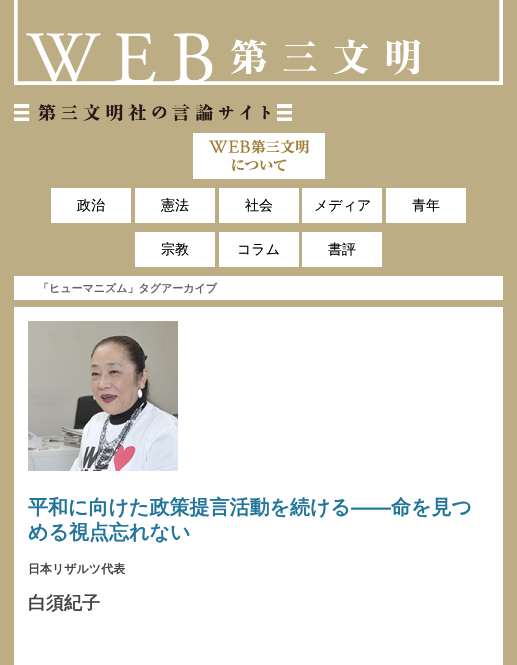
void draw(SkCanvas* canvas) {
  SkPaint paint;
  paint.setAntiAlias(true);
  auto face = [&](const char* family, int weight, float size, bool italic = false) {
    SkFontStyle style(weight, SkFontStyle::kNormal_Width,
      italic ? SkFontStyle::kItalic_Slant : SkFontStyle::kUpright_Slant);
    SkFont result(fontMgr->matchFamilyStyle(family, style), size);
    result.setSubpixel(true);
    return result;
  };
  auto paste = [&](const char* path, float x, float y, float w, float h) {
    auto image = SkImages::DeferredFromEncodedData(SkData::MakeFromFileName(path));
    canvas->drawImageRect(image, SkRect::MakeXYWH(x, y, w, h), SkSamplingOptions());
  };
  canvas->clear(0xffbdad84);
  paste("img/1.png", 14, 0, 489, 121);
  paste("img/2.png", 193, 133, 132, 46);
  {
    const struct { float x, y, w, h; SkColor color; } items[] = {
      {51, 188, 80, 35, 0xffffffff},
      {135, 188, 80, 35, 0xffffffff},
      {219, 188, 80, 35, 0xffffffff},
      {302, 188, 80, 35, 0xffffffff},
      {386, 188, 80, 35, 0xffffffff},
      {135, 232, 80, 35, 0xffffffff},
      {219, 232, 80, 35, 0xffffffff},
      {302, 232, 80, 35, 0xffffffff},
      {14, 276, 489, 24, 0xffffffff},
      {14, 307, 489, 358, 0xffffffff},
    };
    for (auto [x, y, w, h, color] : items) {
      paint.setColor(color);
      canvas->drawRect(SkRect::MakeXYWH(x, y, w, h), paint);
    }
  }
  paste("img/3.png", 28, 321, 150, 150);
  auto f0 = face("WenQuanYi Zen Hei", 500, 14);
  paint.setColor(0xff000000);
  {
    const struct { const char* s; float x, y; } items[] = {
      {"政治", 77, 210},
      {"憲法", 161, 210},
      {"社会", 245, 210},
      {"メディア", 314, 210},
      {"青年", 412, 210},
      {"宗教", 161, 254},
      {"コラム", 237, 254},
      {"書評", 328, 254},
    };
    for (auto [s, x, y] : items) {
      canvas->drawString(s, x, y, f0, paint);
    }
  }
  auto f1 = face("WenQuanYi Zen Hei", 700, 11);
  paint.setColor(0xff636363);
  canvas->drawString("「ヒューマニズム」タグアーカイブ", 38, 292, f1, paint);
  auto f2 = face("WenQuanYi Zen Hei", 700, 20);
  paint.setColor(0xff21759b);
  canvas->drawString("平和に向けた政策提言活動を続ける", 28, 514, f2, paint);
  auto f3 = face("Liberation Sans", 700, 20);
  canvas->drawString("――", 351, 514, f3, paint);
  canvas->drawString("命を見つ", 391, 514, f2, paint);
  canvas->drawString("める視点忘れない", 28, 539, f2, paint);
  auto f4 = face("WenQuanYi Zen Hei", 700, 12);
  paint.setColor(0xff444444);
  canvas->drawString("日本リザルツ代表", 28, 573, f4, paint);
  auto f5 = face("WenQuanYi Zen Hei", 700, 18);
  canvas->drawString("白須紀子", 28, 609, f5, paint);
}
